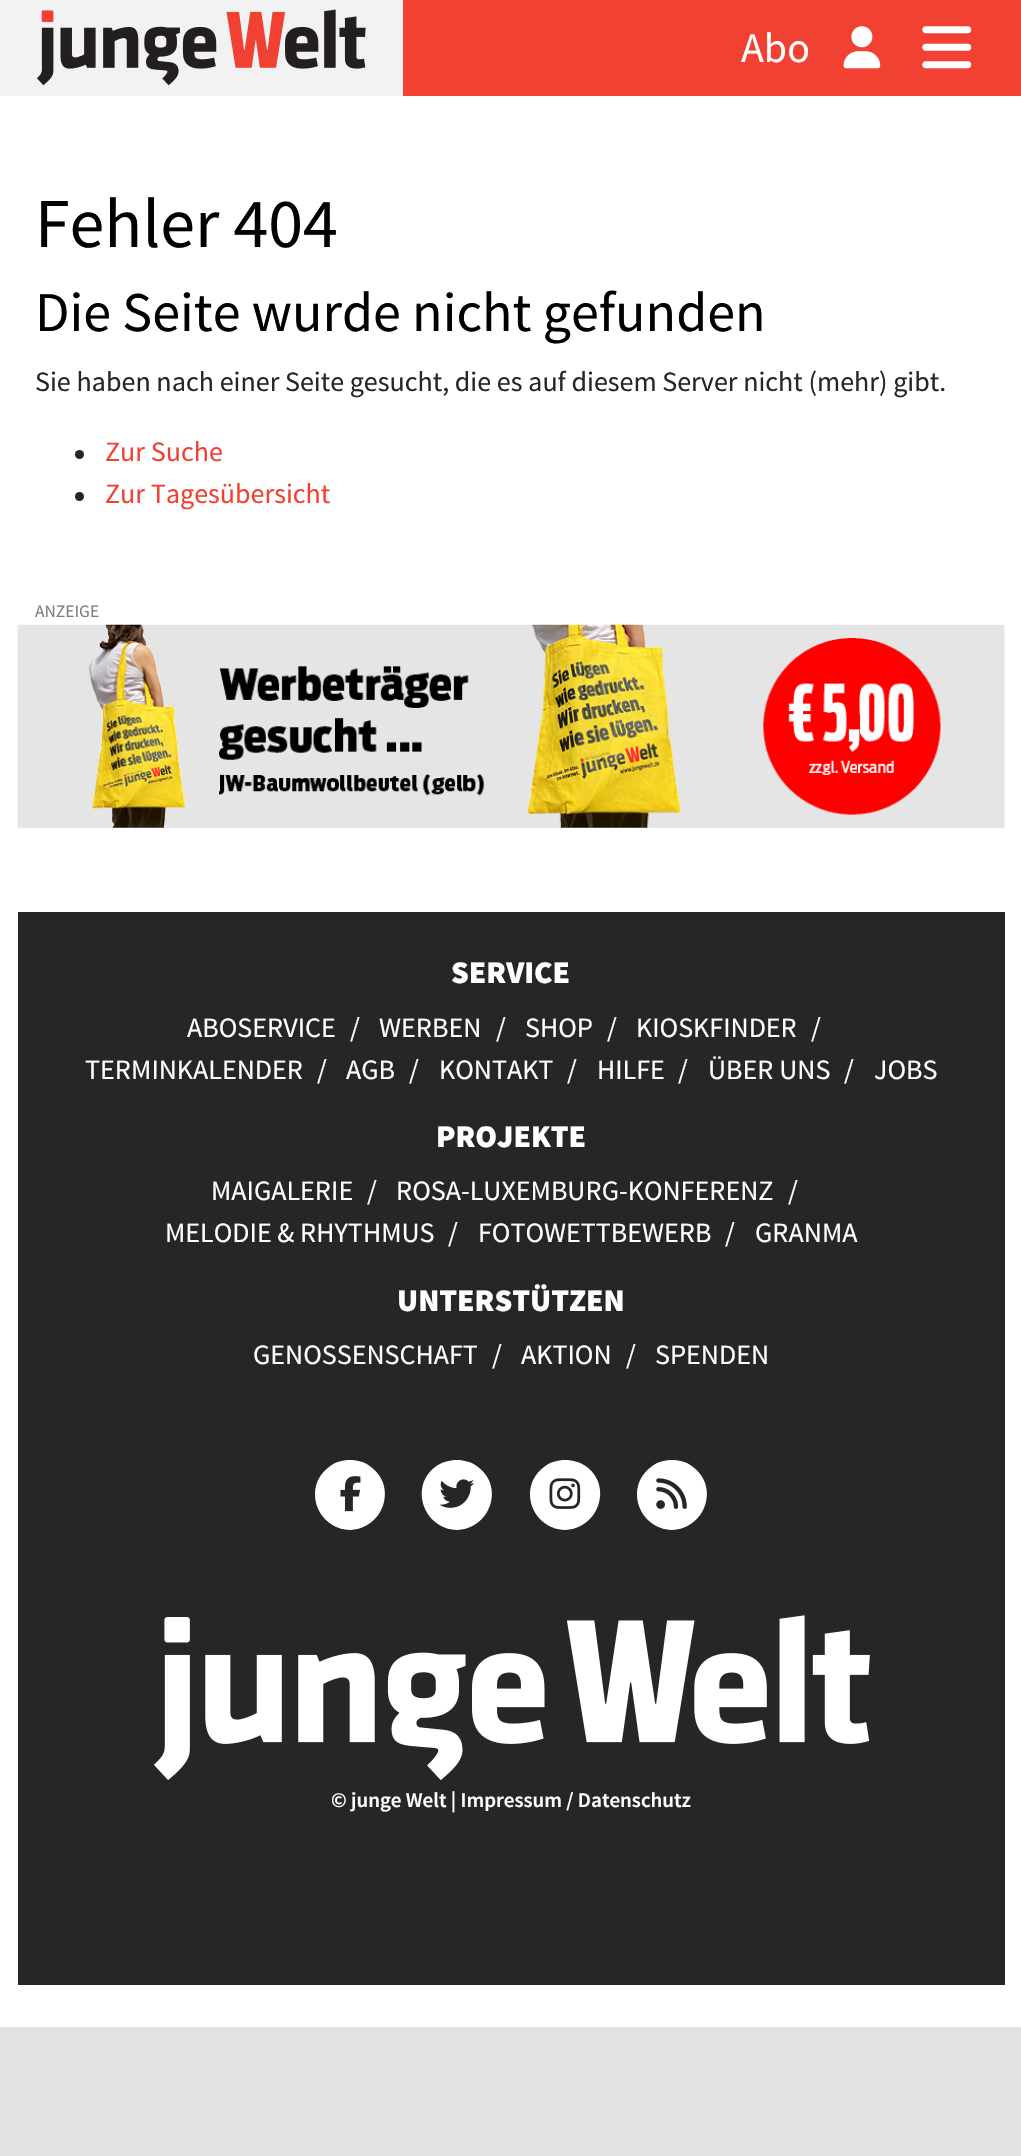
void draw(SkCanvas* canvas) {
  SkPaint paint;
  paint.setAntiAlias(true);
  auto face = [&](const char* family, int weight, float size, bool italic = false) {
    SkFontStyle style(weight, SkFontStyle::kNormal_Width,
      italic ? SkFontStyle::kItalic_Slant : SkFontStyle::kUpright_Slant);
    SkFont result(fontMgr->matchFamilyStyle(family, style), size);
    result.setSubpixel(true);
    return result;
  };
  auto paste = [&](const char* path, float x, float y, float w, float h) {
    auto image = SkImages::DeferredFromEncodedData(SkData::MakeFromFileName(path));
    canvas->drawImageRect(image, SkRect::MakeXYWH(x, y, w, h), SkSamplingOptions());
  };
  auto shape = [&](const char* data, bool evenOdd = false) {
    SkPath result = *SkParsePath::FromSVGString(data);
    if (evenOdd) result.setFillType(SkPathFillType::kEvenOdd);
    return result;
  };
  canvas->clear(0xffe2e2e2);
  {
    const struct { float x, y, w, h; SkColor color; } items[] = {
      {0, 96, 1021, 1931, 0xffffffff},
      {403, 0, 618, 96, 0xfff04132},
      {0, 0, 403, 96, 0xfff2f2f2},
    };
    for (auto [x, y, w, h, color] : items) {
      paint.setColor(color);
      canvas->drawRect(SkRect::MakeXYWH(x, y, w, h), paint);
    }
  }
  paste("img/1.png", 36, 9, 330, 77);
  paste("img/2.png", 843, 26, 38, 43);
  paste("img/3.png", 922, 26, 50, 43);
  paint.setColor(0xff262626);
  canvas->drawCircle(79.5f, 454.5f, 4.5f, paint);
  canvas->drawCircle(79.5f, 496.5f, 4.5f, paint);
  paste("img/4.png", 17, 624, 988, 204);
  canvas->drawRect(SkRect::MakeXYWH(18, 912, 987, 1073), paint);
  paint.setColor(0xffffffff);
  canvas->drawPath(shape("M350 1530C383 1529 398 1487 371 1467C365 1462 358 1460 350 1460C342 1460 335 1462 329 1467C302 1487 317 1529 350 1530Z"), paint);
  paste("img/5.png", 340, 1476, 21, 36);
  canvas->drawPath(shape("M457 1530C490 1529 505 1487 478 1467C472 1462 464 1460 457 1460C449 1460 442 1462 435 1467C409 1487 424 1529 457 1530Z"), paint);
  paste("img/6.png", 439, 1479, 36, 29);
  canvas->drawPath(shape("M565 1530C598 1529 613 1487 587 1467C580 1462 573 1460 565 1460C558 1460 550 1462 544 1467C517 1487 532 1529 565 1530Z"), paint);
  paste("img/7.png", 549, 1478, 32, 31);
  canvas->drawPath(shape("M672 1530C705 1529 720 1487 693 1467C687 1462 680 1460 672 1460C664 1460 657 1462 651 1467C624 1487 639 1529 672 1530Z"), paint);
  paste("img/8.png", 656, 1478, 31, 31);
  paste("img/9.png", 153, 1615, 717, 165);
  auto f0 = face("Source Sans Pro", 400, 42);
  canvas->drawString("Abo", 741, 62, f0, paint);
  auto f1 = face("Source Sans Pro", 400, 70);
  paint.setColor(0xff000000);
  canvas->drawString("Fehler 404", 35, 247, f1, paint);
  auto f2 = face("Source Sans Pro", 400, 56);
  canvas->drawString("Die Seite wurde nicht gefunden", 35, 331, f2, paint);
  auto f3 = face("Source Sans Pro", 400, 28);
  paint.setColor(0xff262626);
  canvas->drawString("Sie haben nach einer Seite gesucht, die es auf diesem Server nicht (mehr) gibt.", 35, 391, f3, paint);
  paint.setColor(0xfff04132);
  canvas->drawString("Zur Suche", 105, 461, f3, paint);
  canvas->drawString("Zur Tagesübersicht", 105, 503, f3, paint);
  auto f4 = face("Source Sans Pro", 400, 17.5f);
  paint.setColor(0xff7d7d7d);
  canvas->drawString("ANZEIGE", 35, 617, f4, paint);
  auto f5 = face("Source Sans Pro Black", 900, 31.5f);
  paint.setColor(0xffffffff);
  canvas->drawString("SERVICE", 451, 983, f5, paint);
  {
    const struct { const char* s; float x, y; } items[] = {
      {"ABOSERVICE", 187, 1037},
      {"/", 350, 1037},
      {"WERBEN", 379, 1037},
      {"/", 496, 1037},
      {"SHOP", 525, 1037},
      {"/", 607, 1037},
      {"KIOSKFINDER", 636, 1037},
      {"/", 811, 1037},
      {"TERMINKALENDER", 85, 1079},
      {"/", 317, 1079},
      {"AGB", 346, 1079},
      {"/", 409, 1079},
      {"KONTAKT", 439, 1079},
      {"/", 567, 1079},
      {"HILFE", 597, 1079},
      {"/", 678, 1079},
      {"ÜBER UNS", 708, 1079},
      {"/", 844, 1079},
      {"JOBS", 874, 1079},
    };
    for (auto [s, x, y] : items) {
      canvas->drawString(s, x, y, f3, paint);
    }
  }
  canvas->drawString("PROJEKTE", 436, 1147, f5, paint);
  {
    const struct { const char* s; float x, y; } items[] = {
      {"MAIGALERIE", 211, 1200},
      {"/", 367, 1200},
      {"ROSA-LUXEMBURG-KONFERENZ", 396, 1200},
      {"/", 788, 1200},
      {"MELODIE & RHYTHMUS", 165, 1242},
      {"/", 448, 1242},
      {"FOTOWETTBEWERB", 478, 1242},
      {"/", 725, 1242},
      {"GRANMA", 755, 1242},
    };
    for (auto [s, x, y] : items) {
      canvas->drawString(s, x, y, f3, paint);
    }
  }
  canvas->drawString("UNTERSTÜTZEN", 397, 1311, f5, paint);
  {
    const struct { const char* s; float x, y; } items[] = {
      {"GENOSSENSCHAFT", 253, 1364},
      {"/", 492, 1364},
      {"AKTION", 521, 1364},
      {"/", 626, 1364},
      {"SPENDEN", 655, 1364},
    };
    for (auto [s, x, y] : items) {
      canvas->drawString(s, x, y, f3, paint);
    }
  }
  auto f6 = face("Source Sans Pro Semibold", 600, 21);
  canvas->drawString("© junge Welt | Impressum / Datenschutz", 331, 1807, f6, paint);
}
